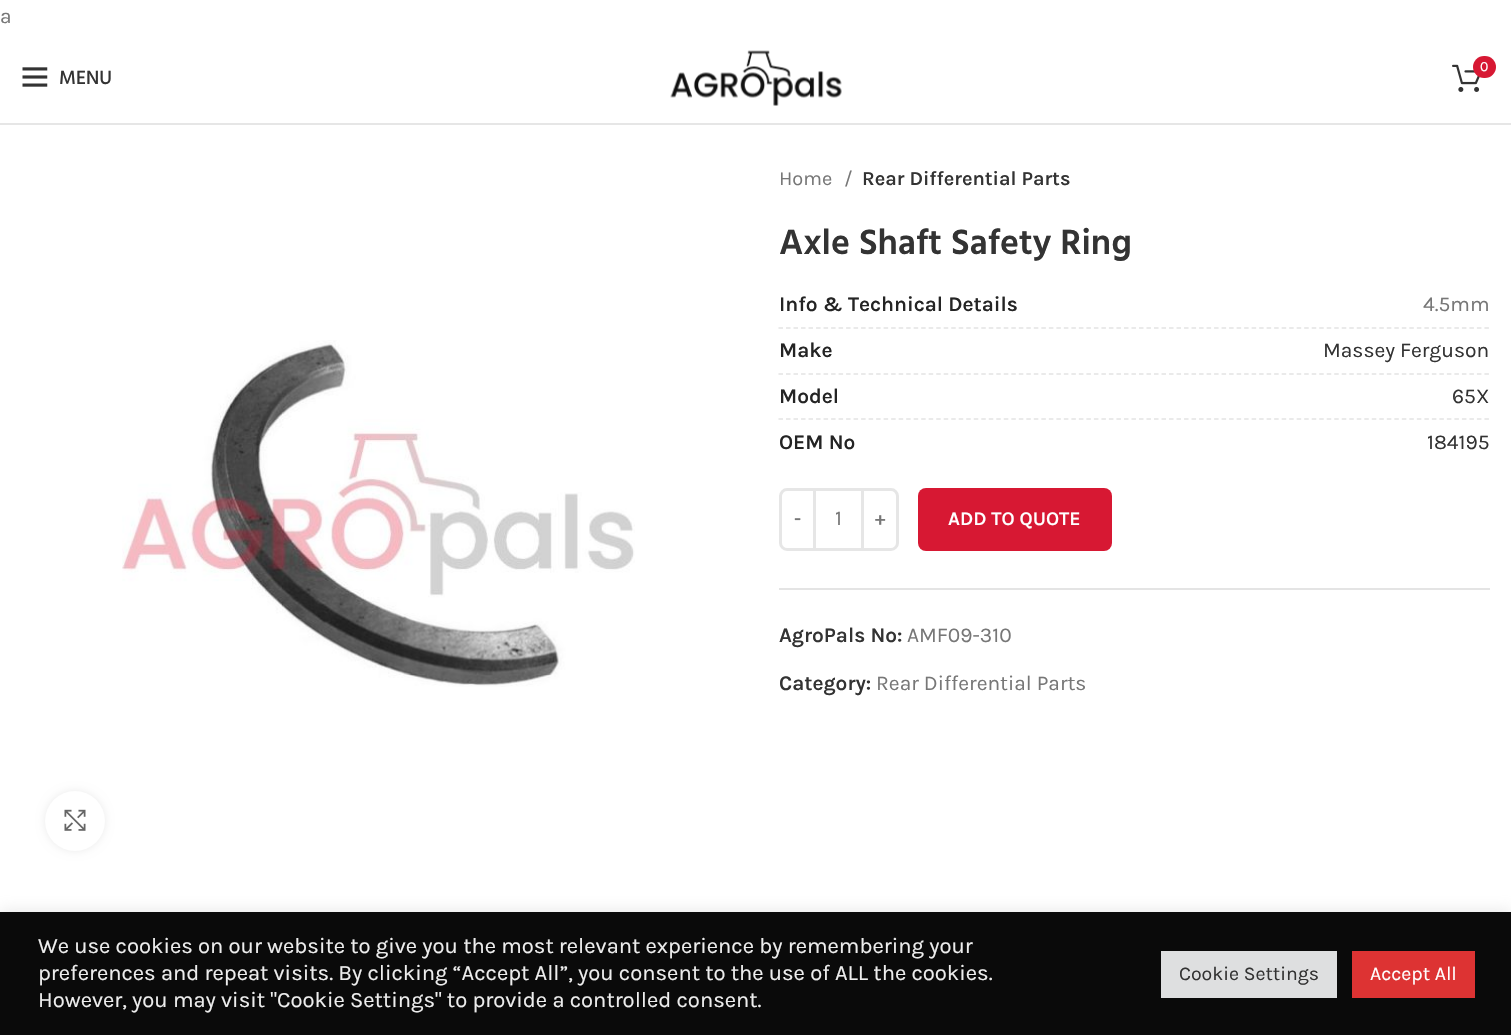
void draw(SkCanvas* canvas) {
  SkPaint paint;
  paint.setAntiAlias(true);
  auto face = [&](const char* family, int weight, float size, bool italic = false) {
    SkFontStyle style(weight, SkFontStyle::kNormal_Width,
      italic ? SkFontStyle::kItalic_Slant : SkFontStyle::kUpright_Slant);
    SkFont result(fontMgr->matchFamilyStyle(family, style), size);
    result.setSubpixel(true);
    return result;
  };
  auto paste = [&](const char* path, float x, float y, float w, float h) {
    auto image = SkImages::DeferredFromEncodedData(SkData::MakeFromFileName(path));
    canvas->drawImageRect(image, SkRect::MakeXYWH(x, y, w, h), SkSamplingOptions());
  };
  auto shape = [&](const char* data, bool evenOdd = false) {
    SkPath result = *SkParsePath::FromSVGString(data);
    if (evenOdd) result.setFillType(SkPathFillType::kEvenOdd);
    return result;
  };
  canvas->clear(0xffffffff);
  paint.setColor(0xffe6e6e6);
  canvas->drawRect(SkRect::MakeXYWH(0, 123, 1511, 2), paint);
  paste("img/1.png", 670, 50, 172, 56);
  paste("img/2.png", 1452, 64, 28, 28);
  paint.setColor(0xffd71833);
  canvas->drawRoundRect(SkRect::MakeXYWH(1473, 56, 23, 22), 11, 11, paint);
  paste("img/3.png", 22, 67, 26, 20);
  paste("img/4.png", 122, 340, 513, 347);
  paint.setColor(0x14000000);
  paint.setMaskFilter(SkMaskFilter::MakeBlur(kNormal_SkBlurStyle, 4));
  canvas->drawRoundRect(SkRect::MakeXYWH(45, 791, 60, 60), 30, 30, paint);
  paint.setMaskFilter(nullptr);
  paint.setColor(0xffffffff);
  canvas->drawCircle(75, 821, 30, paint);
  paste("img/5.png", 64, 809, 22, 22);
  paint.setStroke(true);
  paint.setStrokeWidth(1.5f);
  paint.setColor(0xffe4e4e4);
  paint.setPathEffect(SkDashPathEffect::Make({{4.5f, 3.01f}}, 0));
  canvas->drawPath(shape("M778.5 328H1489.5"), paint);
  paint.setPathEffect(nullptr);
  paint.setPathEffect(SkDashPathEffect::Make({{4.5f, 3.01f}}, 0));
  canvas->drawPath(shape("M778.5 374H1489.5"), paint);
  paint.setPathEffect(nullptr);
  paint.setPathEffect(SkDashPathEffect::Make({{4.5f, 3.01f}}, 0));
  canvas->drawPath(shape("M778.5 419H1489.5"), paint);
  paint.setPathEffect(nullptr);
  paint.setStrokeWidth(3);
  paint.setColor(0xffe6e6e6);
  canvas->drawPath(shape("M787 489.5H814.5V549.5H787C783.5 549.5 780.5 546.5 780.5 543V496C780.5 492.5 783.5 489.5 787 489.5Z"), paint);
  paint.setStroke(false);
  canvas->drawRect(SkRect::MakeXYWH(816, 488, 45, 3), paint);
  canvas->drawRect(SkRect::MakeXYWH(816, 548, 45, 3), paint);
  paint.setStroke(true);
  canvas->drawPath(shape("M862.5 489.5H891C894.5 489.5 897.5 492.5 897.5 496V543C897.5 546.5 894.5 549.5 891 549.5H862.5Z"), paint);
  paint.setStroke(false);
  paint.setColor(0xffd71833);
  canvas->drawRoundRect(SkRect::MakeXYWH(918, 488, 194, 63), 8, 8, paint);
  paint.setColor(0xffe4e4e4);
  canvas->drawRect(SkRect::MakeXYWH(779, 588, 711, 2), paint);
  paint.setColor(0x4dacabab);
  paint.setMaskFilter(SkMaskFilter::MakeBlur(kNormal_SkBlurStyle, 7.5f));
  canvas->drawRect(SkRect::MakeXYWH(0, 911, 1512, 123), paint);
  paint.setMaskFilter(nullptr);
  {
    const struct { float x, y, w, h; SkColor color; } items[] = {
      {0, 912, 1511, 123, 0xff0a0a0a},
      {1161, 951, 176, 47, 0xffdedfe0},
      {1352, 951, 123, 47, 0xffdd3333},
    };
    for (auto [x, y, w, h, color] : items) {
      paint.setColor(color);
      canvas->drawRect(SkRect::MakeXYWH(x, y, w, h), paint);
    }
  }
  auto f0 = face("Karla", 400, 21);
  paint.setColor(0xff777777);
  canvas->drawString("a", 0, 23, f0, paint);
  auto f1 = face("Karla", 400, 14);
  paint.setColor(0xffffffff);
  canvas->drawString("0", 1480, 71, f1, paint);
  auto f2 = face("Hind", 500, 19.5f);
  paint.setColor(0xff333333);
  canvas->drawString("MENU", 59, 84, f2, paint);
  auto f3 = face("Karla", 400, 20);
  paint.setColor(0xff777777);
  canvas->drawString("Home", 779, 185, f3, paint);
  canvas->drawString("/", 844, 185, f3, paint);
  auto f4 = face("Karla", 600, 20);
  paint.setColor(0xff333333);
  canvas->drawString("Rear Differential Parts", 862, 185, f4, paint);
  auto f5 = face("Hind", 600, 36);
  canvas->drawString("Axle Shaft Safety Ring", 779, 254, f5, paint);
  auto f6 = face("Karla", 600, 21);
  paint.setColor(0xff242424);
  canvas->drawString("Info & Technical Details", 779, 311, f6, paint);
  paint.setColor(0xff777777);
  canvas->drawString("4.5mm", 1423, 311, f0, paint);
  paint.setColor(0xff242424);
  canvas->drawString("Make", 779, 357, f6, paint);
  paint.setColor(0xff333333);
  canvas->drawString("Massey Ferguson", 1323, 357, f0, paint);
  paint.setColor(0xff242424);
  canvas->drawString("Model", 779, 403, f6, paint);
  paint.setColor(0xff333333);
  canvas->drawString("65X", 1452, 403, f0, paint);
  paint.setColor(0xff242424);
  canvas->drawString("OEM No", 779, 449, f6, paint);
  paint.setColor(0xff333333);
  canvas->drawString("184195", 1427, 449, f0, paint);
  auto f7 = face("Karla", 600, 19.5f);
  paint.setColor(0xff777777);
  canvas->drawString("-", 794, 525, f7, paint);
  canvas->drawString("1", 835, 525, f0, paint);
  canvas->drawString("+", 875, 525, f7, paint);
  paint.setColor(0xffffffff);
  canvas->drawString("ADD TO QUOTE", 948, 525, f7, paint);
  paint.setColor(0xff333333);
  canvas->drawString("AgroPals No:", 779, 642, f6, paint);
  paint.setColor(0xff777777);
  canvas->drawString("AMF09-310", 907, 642, f0, paint);
  paint.setColor(0xff333333);
  canvas->drawString("Category:", 779, 690, f6, paint);
  paint.setColor(0xff777777);
  canvas->drawString("Rear Differential Parts", 876, 690, f0, paint);
  auto f8 = face("Karla", 400, 22);
  paint.setColor(0xffededed);
  {
    const struct { const char* s; float x, y; } items[] = {
      {"We use cookies on our website to give you the most relevant experience by remembering your", 38, 953},
      {"preferences and repeat visits. By clicking “Accept All”, you consent to the use of ALL the cookies.", 38, 980},
      {"However, you may visit \"Cookie Settings\" to provide a controlled consent.", 38, 1007},
    };
    for (auto [s, x, y] : items) {
      canvas->drawString(s, x, y, f8, paint);
    }
  }
  auto f9 = face("Karla", 400, 19.5f);
  paint.setColor(0xff333333);
  canvas->drawString("Cookie Settings", 1179, 980, f9, paint);
  paint.setColor(0xffffffff);
  canvas->drawString("Accept All", 1370, 980, f9, paint);
}
